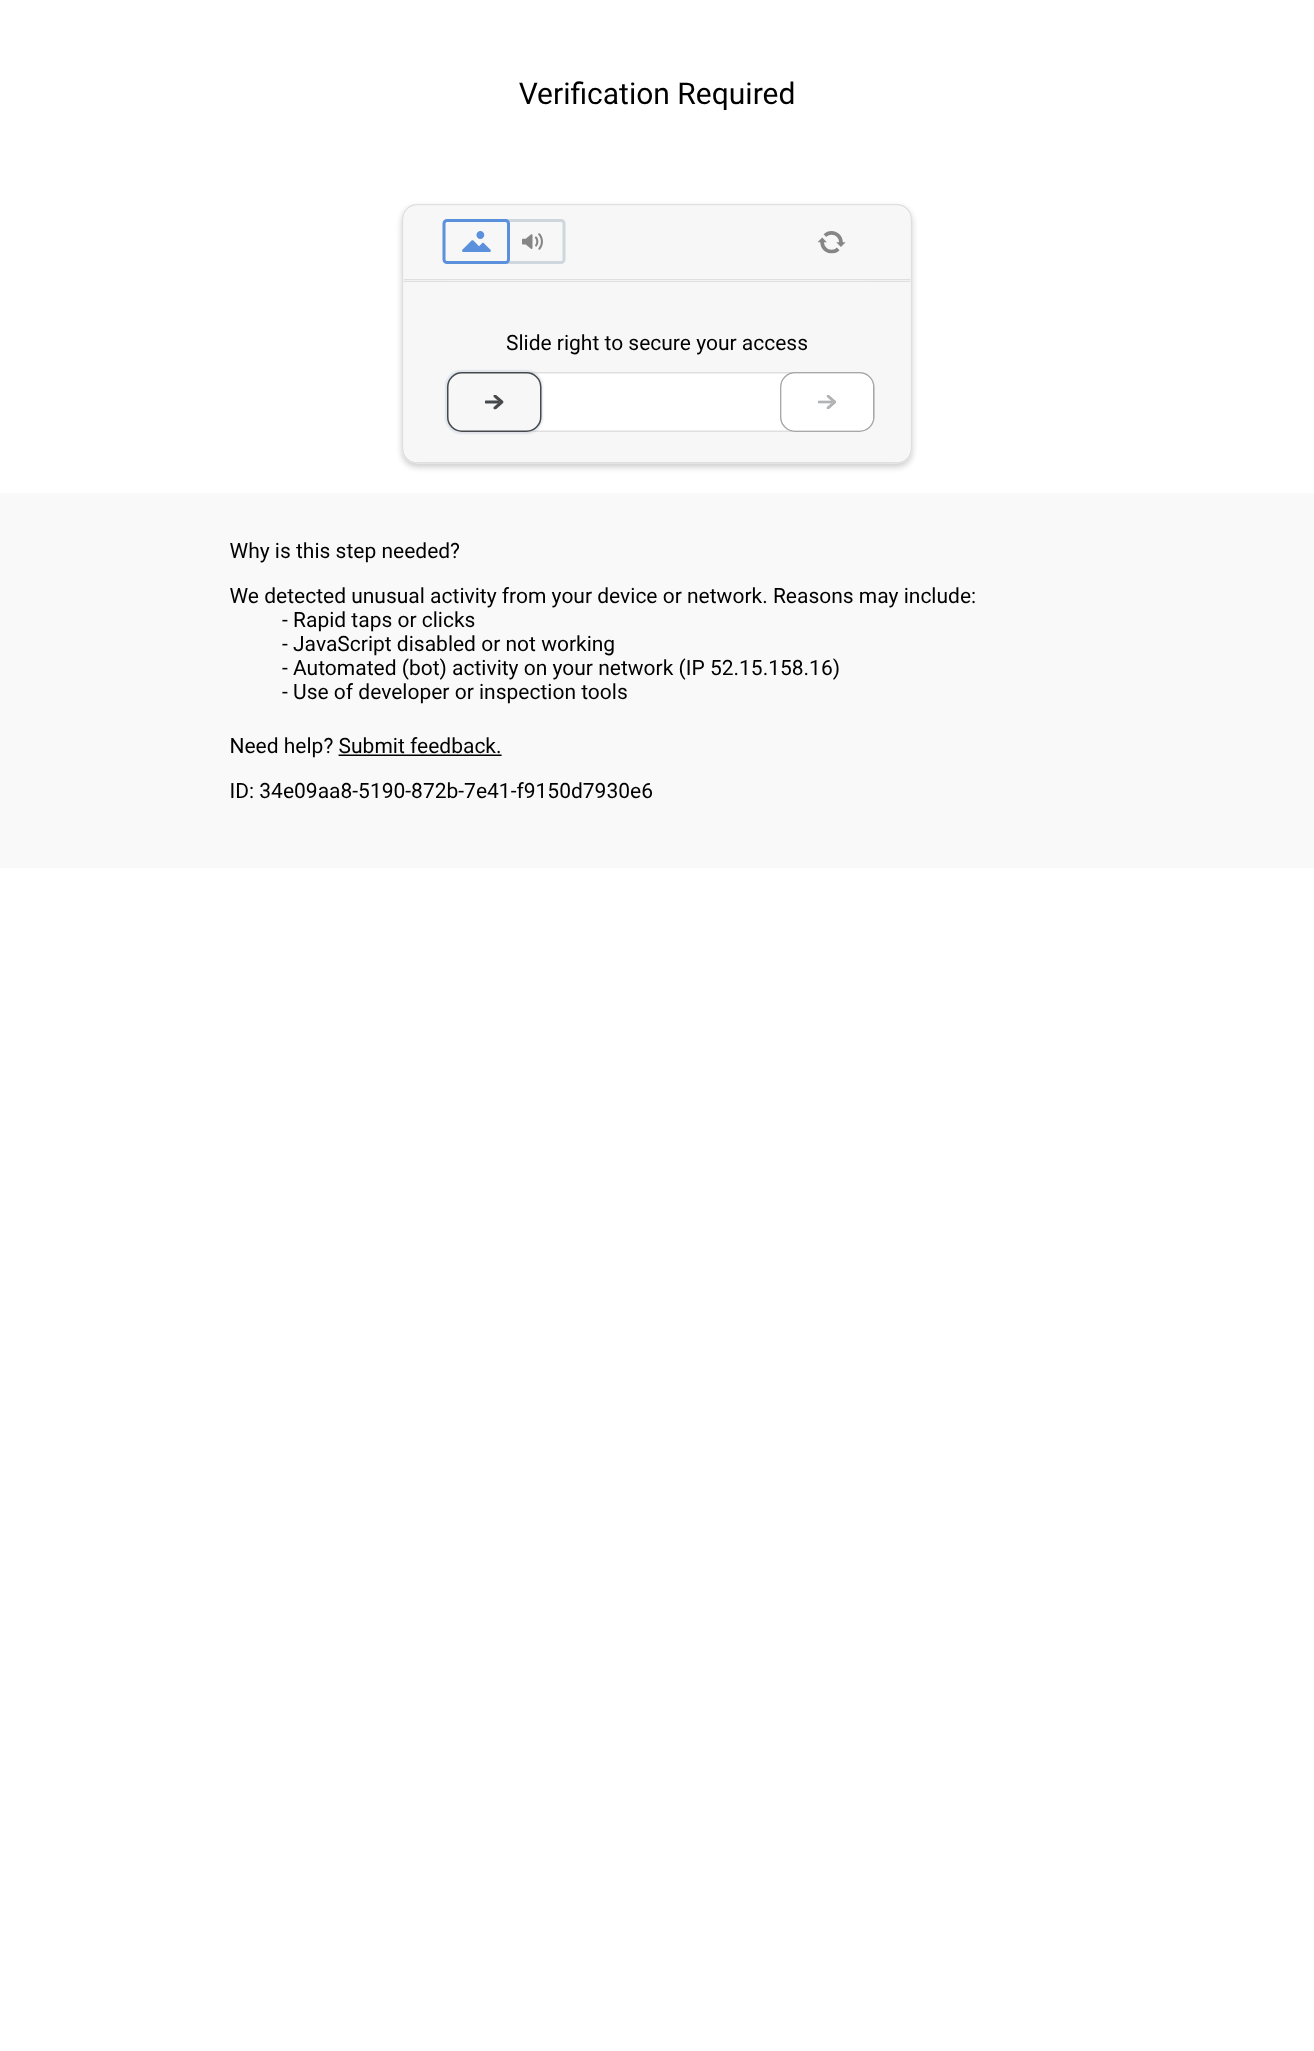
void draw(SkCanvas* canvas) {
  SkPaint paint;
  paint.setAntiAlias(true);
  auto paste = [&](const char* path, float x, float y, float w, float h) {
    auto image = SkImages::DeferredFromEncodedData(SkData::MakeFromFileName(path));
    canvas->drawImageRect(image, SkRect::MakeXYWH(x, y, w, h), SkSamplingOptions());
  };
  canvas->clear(0xffffffff);
  paste("img/1.png", 0, 81, 1314, 787);
}
